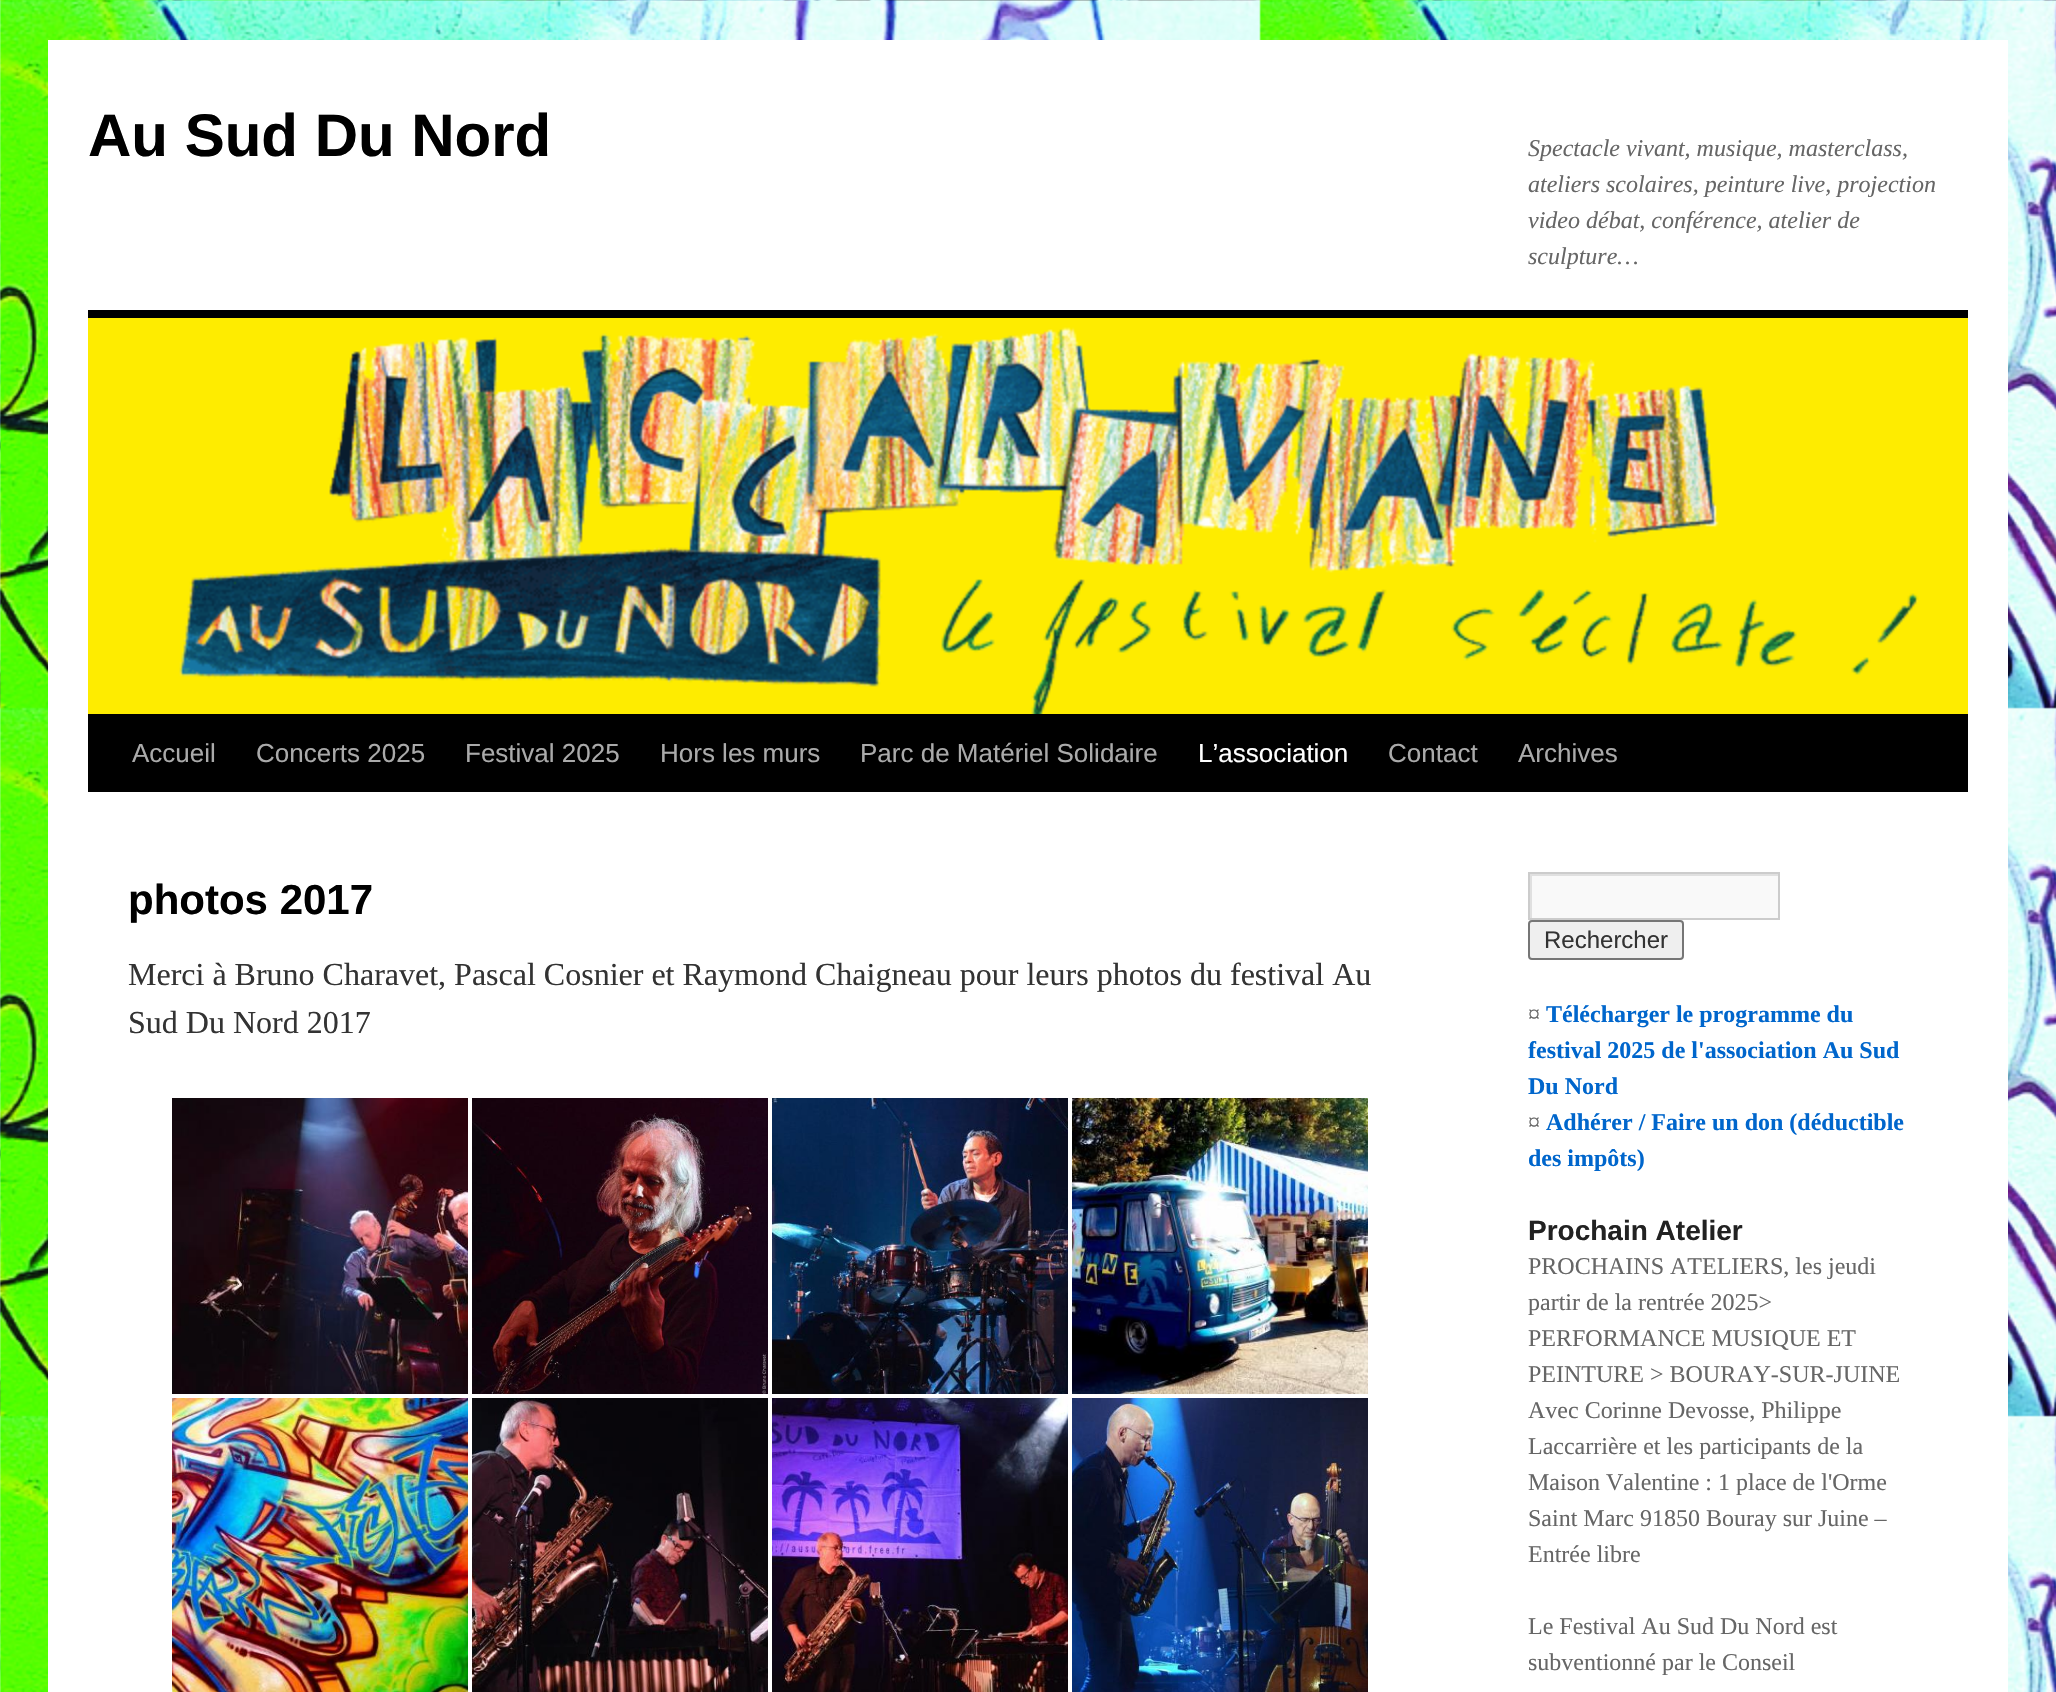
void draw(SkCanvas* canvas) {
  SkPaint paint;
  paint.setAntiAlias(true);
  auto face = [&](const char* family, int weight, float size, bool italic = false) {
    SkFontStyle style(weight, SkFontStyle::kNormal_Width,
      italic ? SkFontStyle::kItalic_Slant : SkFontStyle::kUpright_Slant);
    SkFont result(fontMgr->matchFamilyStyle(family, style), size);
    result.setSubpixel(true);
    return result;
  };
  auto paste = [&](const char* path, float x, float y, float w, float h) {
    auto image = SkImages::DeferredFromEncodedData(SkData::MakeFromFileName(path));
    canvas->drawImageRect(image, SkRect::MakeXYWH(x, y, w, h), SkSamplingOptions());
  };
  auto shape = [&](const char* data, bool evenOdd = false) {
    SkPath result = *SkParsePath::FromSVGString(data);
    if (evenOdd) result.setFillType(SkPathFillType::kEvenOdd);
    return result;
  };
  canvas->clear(0xffffffff);
  paste("img/1.png", 0, 0, 2056, 1692);
  {
    const struct { float x, y, w, h; SkColor color; } items[] = {
      {48, 40, 1960, 1652, 0xffffffff},
      {88, 310, 1880, 8, 0xff000000},
      {88, 714, 1880, 78, 0xff000000},
    };
    for (auto [x, y, w, h, color] : items) {
      paint.setColor(color);
      canvas->drawRect(SkRect::MakeXYWH(x, y, w, h), paint);
    }
  }
  paste("img/2.png", 88, 318, 1880, 396);
  paste("img/3.png", 172, 1098, 296, 296);
  paste("img/4.png", 472, 1098, 296, 296);
  paste("img/5.png", 772, 1098, 296, 296);
  paste("img/6.png", 1072, 1098, 296, 296);
  paste("img/7.png", 172, 1398, 296, 294);
  paste("img/8.png", 472, 1398, 296, 294);
  paste("img/9.png", 772, 1398, 296, 294);
  paste("img/10.png", 1072, 1398, 296, 294);
  paint.setColor(0xfff9f9f9);
  canvas->drawRect(SkRect::MakeXYWH(1532, 876, 246, 42), paint);
  canvas->save();
  canvas->clipRect(SkRect::MakeXYWH(1530, 874, 248, 44));
  paint.setColor(0xffe0e0e0);
  canvas->drawPath(shape("M1332 676H1976V1116H1332ZM1532 876H1780V920H1532Z", true), paint);
  canvas->restore();
  paint.setStroke(true);
  paint.setStrokeWidth(2);
  paint.setColor(0xffcccccc);
  canvas->drawRect(SkRect::MakeXYWH(1529, 873, 250, 46), paint);
  paint.setStroke(false);
  paint.setColor(0xffefefef);
  canvas->drawRoundRect(SkRect::MakeXYWH(1529, 921, 154, 38), 3, 3, paint);
  paint.setStroke(true);
  paint.setColor(0xff767676);
  canvas->drawRoundRect(SkRect::MakeXYWH(1529, 921, 154, 38), 3, 3, paint);
  auto f0 = face("Liberation Sans", 700, 60);
  paint.setStroke(false);
  paint.setColor(0xff000000);
  canvas->drawString("Au Sud Du Nord", 88, 156, f0, paint);
  auto f1 = face("Liberation Serif", 400, 24, true);
  paint.setColor(0xff666666);
  {
    const struct { const char* s; float x, y; } items[] = {
      {"Spectacle vivant, musique, masterclass,", 1528, 156},
      {"ateliers scolaires, peinture live, projection", 1528, 192},
      {"video débat, conférence, atelier de", 1528, 228},
      {"sculpture…", 1528, 264},
    };
    for (auto [s, x, y] : items) {
      canvas->drawString(s, x, y, f1, paint);
    }
  }
  auto f2 = face("Liberation Sans", 400, 26);
  paint.setColor(0xffaaaaaa);
  {
    const struct { const char* s; float x, y; } items[] = {
      {"Accueil", 132, 762},
      {"Concerts 2025", 256, 762},
      {"Festival 2025", 465, 762},
      {"Hors les murs", 660, 762},
      {"Parc de Matériel Solidaire", 860, 762},
    };
    for (auto [s, x, y] : items) {
      canvas->drawString(s, x, y, f2, paint);
    }
  }
  paint.setColor(0xffffffff);
  canvas->drawString("L’association", 1198, 762, f2, paint);
  paint.setColor(0xffaaaaaa);
  canvas->drawString("Contact", 1388, 762, f2, paint);
  canvas->drawString("Archives", 1518, 762, f2, paint);
  auto f3 = face("Liberation Sans", 700, 42);
  paint.setColor(0xff000000);
  canvas->drawString("photos 2017", 128, 914, f3, paint);
  auto f4 = face("Liberation Serif", 400, 32);
  paint.setColor(0xff333333);
  canvas->drawString("Merci à Bruno Charavet, Pascal Cosnier et Raymond Chaigneau pour leurs photos du festival Au", 128, 985, f4, paint);
  canvas->drawString("Sud Du Nord 2017", 128, 1033, f4, paint);
  auto f5 = face("Liberation Sans", 400, 24);
  canvas->drawString("Rechercher", 1544, 948, f5, paint);
  auto f6 = face("Liberation Serif", 400, 24);
  paint.setColor(0xff666666);
  canvas->drawString("¤", 1528, 1022, f6, paint);
  auto f7 = face("Liberation Serif", 700, 24);
  paint.setColor(0xff0066cc);
  {
    const struct { const char* s; float x, y; } items[] = {
      {"Télécharger le programme du", 1546, 1022},
      {"festival 2025 de l'association Au Sud", 1528, 1058},
      {"Du Nord", 1528, 1094},
    };
    for (auto [s, x, y] : items) {
      canvas->drawString(s, x, y, f7, paint);
    }
  }
  paint.setColor(0xff666666);
  canvas->drawString("¤", 1528, 1130, f6, paint);
  paint.setColor(0xff0066cc);
  canvas->drawString("Adhérer / Faire un don (déductible", 1546, 1130, f7, paint);
  canvas->drawString("des impôts)", 1528, 1166, f7, paint);
  auto f8 = face("Liberation Sans", 700, 28);
  paint.setColor(0xff222222);
  canvas->drawString("Prochain Atelier", 1528, 1240, f8, paint);
  paint.setColor(0xff666666);
  {
    const struct { const char* s; float x, y; } items[] = {
      {"PROCHAINS ATELIERS, les jeudi", 1528, 1274},
      {"partir de la rentrée 2025>", 1528, 1310},
      {"PERFORMANCE MUSIQUE ET", 1528, 1346},
      {"PEINTURE > BOURAY-SUR-JUINE", 1528, 1382},
      {"Avec Corinne Devosse, Philippe", 1528, 1418},
      {"Laccarrière et les participants de la", 1528, 1454},
      {"Maison Valentine : 1 place de l'Orme", 1528, 1490},
      {"Saint Marc 91850 Bouray sur Juine –", 1528, 1526},
      {"Entrée libre", 1528, 1562},
      {"Le Festival Au Sud Du Nord est", 1528, 1634},
      {"subventionné par le Conseil", 1528, 1670},
    };
    for (auto [s, x, y] : items) {
      canvas->drawString(s, x, y, f6, paint);
    }
  }
}
